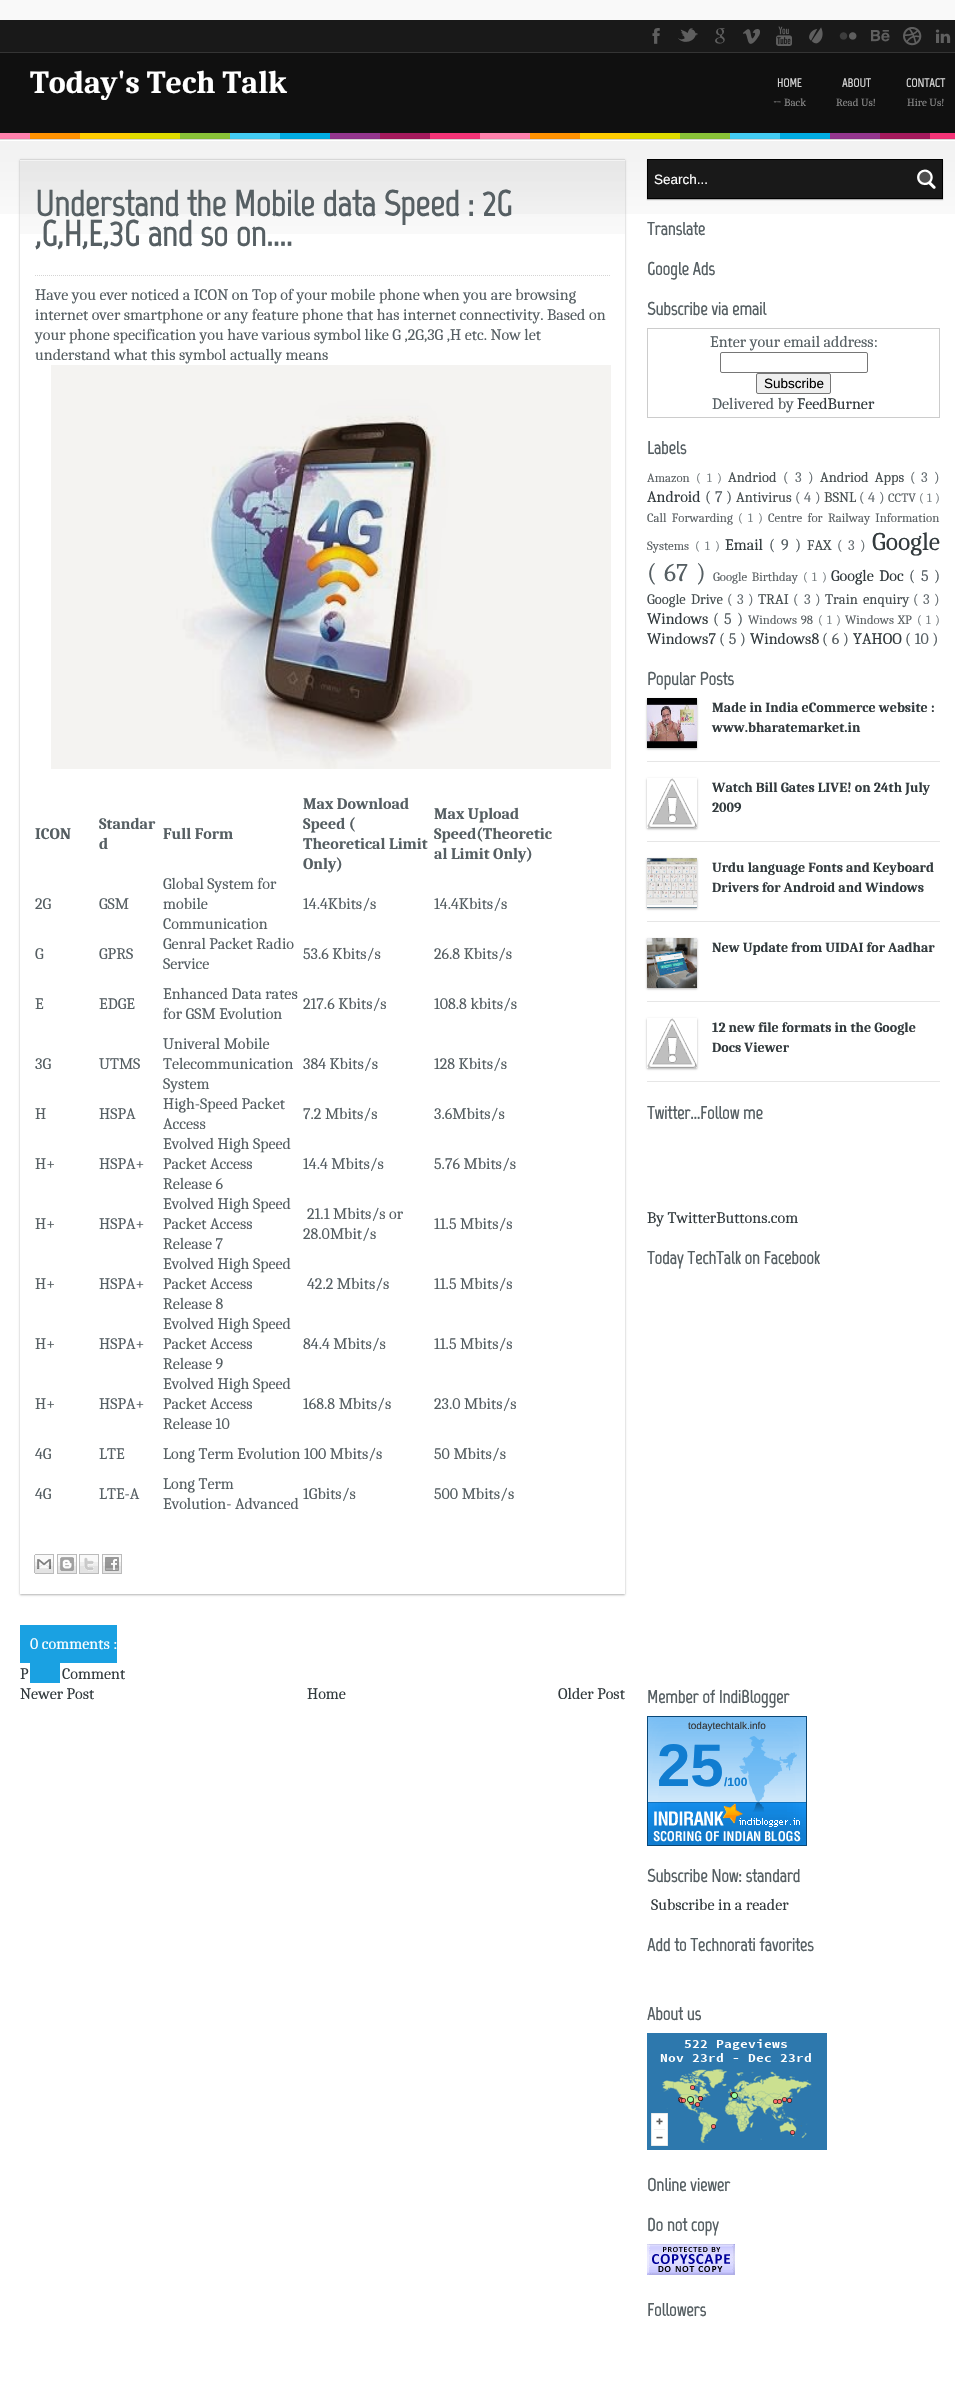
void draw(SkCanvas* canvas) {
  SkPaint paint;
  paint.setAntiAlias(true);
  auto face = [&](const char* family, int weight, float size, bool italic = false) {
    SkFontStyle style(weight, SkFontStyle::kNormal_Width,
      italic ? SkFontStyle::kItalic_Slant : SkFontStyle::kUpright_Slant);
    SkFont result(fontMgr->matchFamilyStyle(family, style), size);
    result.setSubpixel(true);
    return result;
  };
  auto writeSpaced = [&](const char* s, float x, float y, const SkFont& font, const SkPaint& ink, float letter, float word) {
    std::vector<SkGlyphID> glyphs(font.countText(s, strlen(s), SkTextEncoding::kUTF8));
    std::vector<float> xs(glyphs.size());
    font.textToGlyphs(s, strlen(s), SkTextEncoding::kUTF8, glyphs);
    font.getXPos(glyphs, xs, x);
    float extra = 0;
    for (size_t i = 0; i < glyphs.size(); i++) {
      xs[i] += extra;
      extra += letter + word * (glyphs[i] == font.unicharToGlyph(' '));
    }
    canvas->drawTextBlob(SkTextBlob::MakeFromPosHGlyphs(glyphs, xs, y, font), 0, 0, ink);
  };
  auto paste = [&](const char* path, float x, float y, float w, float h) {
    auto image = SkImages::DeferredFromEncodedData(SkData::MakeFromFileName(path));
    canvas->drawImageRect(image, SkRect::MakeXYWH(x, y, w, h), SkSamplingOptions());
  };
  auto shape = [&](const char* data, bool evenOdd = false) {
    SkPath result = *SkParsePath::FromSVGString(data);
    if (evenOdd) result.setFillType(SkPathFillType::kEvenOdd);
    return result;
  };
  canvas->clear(0xfff9f9f9);
  paint.setColor(0xff191919);
  canvas->drawRect(SkRect::MakeXYWH(0, 20, 955, 32), paint);
  paint.setColor(0xff343434);
  canvas->drawRect(SkRect::MakeXYWH(0, 52, 955, 1), paint);
  paste("img/1.png", 652, 28, 8, 16);
  paste("img/2.png", 678, 28, 20, 14);
  paste("img/3.png", 715, 28, 10, 16);
  paste("img/4.png", 743, 29, 17, 15);
  paste("img/5.png", 776, 26, 16, 20);
  paste("img/6.png", 809, 27, 14, 17);
  paste("img/7.png", 839, 32, 18, 8);
  paste("img/8.png", 871, 30, 19, 12);
  paste("img/9.png", 903, 27, 19, 19);
  paste("img/10.png", 935, 29, 16, 14);
  paint.setColor(0xff101010);
  canvas->drawRect(SkRect::MakeXYWH(0, 53, 955, 80), paint);
  paste("img/11.png", 0, 133, 955, 6);
  paint.setColor(0x66000000);
  paint.setMaskFilter(SkMaskFilter::MakeBlur(kNormal_SkBlurStyle, 1));
  canvas->drawRect(SkRect::MakeXYWH(0, 140, 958, 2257), paint);
  paint.setMaskFilter(nullptr);
  paint.setColor(0xffffffff);
  canvas->drawRect(SkRect::MakeXYWH(0, 140, 955, 2254), paint);
  paste("img/12.png", 0, 139, 955, 75);
  canvas->save();
  canvas->clipPath(shape("M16 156H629V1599H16ZM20 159H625V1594H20Z", true), true);
  paint.setColor(0x4d000000);
  paint.setMaskFilter(SkMaskFilter::MakeBlur(kNormal_SkBlurStyle, 1));
  canvas->drawRect(SkRect::MakeXYWH(20, 160, 605, 1435), paint);
  paint.setMaskFilter(nullptr);
  canvas->restore();
  paste("img/13.png", 20, 159, 605, 75);
  paint.setStroke(true);
  paint.setStrokeWidth(1);
  paint.setColor(0xffd4d4d4);
  paint.setPathEffect(SkDashPathEffect::Make({{1, 1}}, 0));
  canvas->drawPath(shape("M35 275.5H610"), paint);
  paint.setPathEffect(nullptr);
  paste("img/14.png", 51, 365, 560, 404);
  paste("img/15.png", 34, 1554, 20, 20);
  paste("img/16.png", 57, 1554, 20, 20);
  paste("img/17.png", 79, 1554, 20, 20);
  paste("img/18.png", 102, 1554, 20, 20);
  paint.setStroke(false);
  paint.setColor(0xff1aa1e2);
  canvas->drawRect(SkRect::MakeXYWH(20, 1625, 97, 38), paint);
  canvas->drawRect(SkRect::MakeXYWH(30, 1663, 30, 20), paint);
  paint.setColor(0x4d000000);
  paint.setMaskFilter(SkMaskFilter::MakeBlur(kNormal_SkBlurStyle, 0.5f));
  canvas->drawRect(SkRect::MakeXYWH(647, 160, 296, 40), paint);
  paint.setMaskFilter(nullptr);
  paint.setColor(0xff191919);
  canvas->drawRect(SkRect::MakeXYWH(647.5f, 159.5f, 295, 39), paint);
  paint.setStroke(true);
  paint.setColor(0xff000000);
  canvas->drawRect(SkRect::MakeXYWH(647.5f, 159.5f, 295, 39), paint);
  paste("img/19.png", 917, 169, 19, 20);
  paint.setColor(0xffcccccc);
  canvas->drawRect(SkRect::MakeXYWH(647.5f, 328.5f, 292, 89), paint);
  paint.setColor(0xff767676);
  canvas->drawRoundRect(SkRect::MakeXYWH(720.5f, 352.5f, 147, 20), 1.5f, 1.5f, paint);
  paint.setStroke(false);
  paint.setColor(0xffefefef);
  canvas->drawRoundRect(SkRect::MakeXYWH(756.5f, 373.5f, 74, 20), 1.5f, 1.5f, paint);
  paint.setStroke(true);
  paint.setColor(0xff767676);
  canvas->drawRoundRect(SkRect::MakeXYWH(756.5f, 373.5f, 74, 20), 1.5f, 1.5f, paint);
  paint.setStroke(false);
  paint.setColor(0xffe6e6e6);
  canvas->drawRect(SkRect::MakeXYWH(647, 761, 293, 1), paint);
  paint.setColor(0x4d000000);
  paint.setMaskFilter(SkMaskFilter::MakeBlur(kNormal_SkBlurStyle, 1));
  canvas->drawRect(SkRect::MakeXYWH(647, 699, 50, 50), paint);
  paint.setMaskFilter(nullptr);
  paste("img/20.png", 647, 698, 50, 50);
  paint.setColor(0xffe6e6e6);
  canvas->drawRect(SkRect::MakeXYWH(647, 841, 293, 1), paint);
  canvas->save();
  canvas->clipPath(shape("M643 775H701V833H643ZM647 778H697V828H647Z", true), true);
  paint.setColor(0x4d000000);
  paint.setMaskFilter(SkMaskFilter::MakeBlur(kNormal_SkBlurStyle, 1));
  canvas->drawRect(SkRect::MakeXYWH(647, 779, 50, 50), paint);
  paint.setMaskFilter(nullptr);
  canvas->restore();
  paste("img/21.png", 647, 778, 50, 50);
  paint.setColor(0xffe6e6e6);
  canvas->drawRect(SkRect::MakeXYWH(647, 921, 293, 1), paint);
  paint.setColor(0x4d000000);
  paint.setMaskFilter(SkMaskFilter::MakeBlur(kNormal_SkBlurStyle, 1));
  canvas->drawRect(SkRect::MakeXYWH(647, 859, 50, 50), paint);
  paint.setMaskFilter(nullptr);
  paste("img/22.png", 647, 858, 50, 50);
  paint.setColor(0xffe6e6e6);
  canvas->drawRect(SkRect::MakeXYWH(647, 1001, 293, 1), paint);
  paint.setColor(0x4d000000);
  paint.setMaskFilter(SkMaskFilter::MakeBlur(kNormal_SkBlurStyle, 1));
  canvas->drawRect(SkRect::MakeXYWH(647, 939, 50, 50), paint);
  paint.setMaskFilter(nullptr);
  paste("img/23.png", 647, 938, 50, 50);
  paint.setColor(0xffe6e6e6);
  canvas->drawRect(SkRect::MakeXYWH(647, 1081, 293, 1), paint);
  canvas->save();
  canvas->clipPath(shape("M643 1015H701V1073H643ZM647 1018H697V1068H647Z", true), true);
  paint.setColor(0x4d000000);
  paint.setMaskFilter(SkMaskFilter::MakeBlur(kNormal_SkBlurStyle, 1));
  canvas->drawRect(SkRect::MakeXYWH(647, 1019, 50, 50), paint);
  paint.setMaskFilter(nullptr);
  canvas->restore();
  paste("img/21.png", 647, 1018, 50, 50);
  paste("img/24.png", 647, 1716, 160, 130);
  paste("img/25.png", 647, 2033, 180, 117);
  paste("img/26.png", 647, 2244, 88, 31);
  auto f0 = face("Caladea", 700, 32);
  paint.setColor(0xffffffff);
  canvas->drawString("Today's Tech Talk", 30, 93, f0, paint);
  auto f1 = face("Marvel", 700, 12);
  paint.setColor(0xffd4d4d4);
  canvas->drawString("HOME", 777, 87, f1, paint);
  auto f2 = face("Caladea", 400, 11);
  paint.setColor(0xff888888);
  canvas->drawString("← Back", 773, 106, f2, paint);
  paint.setColor(0xffd4d4d4);
  canvas->drawString("ABOUT", 842, 87, f1, paint);
  paint.setColor(0xff888888);
  canvas->drawString("Read Us!", 836, 106, f2, paint);
  paint.setColor(0xffd4d4d4);
  canvas->drawString("CONTACT", 906, 87, f1, paint);
  paint.setColor(0xff888888);
  canvas->drawString("Hire Us!", 907, 106, f2, paint);
  auto f3 = face("Marvel", 700, 36);
  paint.setColor(0xff565f63);
  canvas->drawString("Understand the Mobile data Speed : 2G", 35, 216, f3, paint);
  canvas->drawString(",G,H,E,3G and so on....", 35, 246, f3, paint);
  auto f4 = face("Caladea", 400, 16);
  {
    const struct { const char* s; float x, y; } items[] = {
      {"Have you ever noticed a ICON on Top of your mobile phone when you are browsing", 35, 300},
      {"internet over smartphone or any feature phone that has internet connectivity. Based on", 35, 320},
      {"your phone specification you have various symbol like G ,2G,3G ,H etc. Now let", 35, 340},
      {"understand what this symbol actually means", 35, 360},
    };
    for (auto [s, x, y] : items) {
      canvas->drawString(s, x, y, f4, paint);
    }
  }
  auto f5 = face("Caladea", 700, 16);
  {
    const struct { const char* s; float x, y; } items[] = {
      {"ICON", 35, 839},
      {"Standar", 99, 829},
      {"d", 99, 849},
      {"Full Form", 163, 839},
      {"Max Download", 303, 809},
      {"Speed (", 303, 829},
      {"Theoretical Limit", 303, 849},
      {"Only)", 303, 869},
      {"Max Upload", 434, 819},
      {"Speed(Theoretic", 434, 839},
      {"al Limit Only)", 434, 859},
    };
    for (auto [s, x, y] : items) {
      canvas->drawString(s, x, y, f5, paint);
    }
  }
  {
    const struct { const char* s; float x, y; } items[] = {
      {"2G", 35, 909},
      {"GSM", 99, 909},
      {"Global System for", 163, 889},
      {"mobile", 163, 909},
      {"Communication", 163, 929},
      {"14.4Kbits/s", 303, 909},
      {"14.4Kbits/s", 434, 909},
      {"G", 35, 959},
      {"GPRS", 99, 959},
      {"Genral Packet Radio", 163, 949},
      {"Service", 163, 969},
      {"53.6 Kbits/s", 303, 959},
      {"26.8 Kbits/s", 434, 959},
      {"E", 35, 1009},
      {"EDGE", 99, 1009},
      {"Enhanced Data rates", 163, 999},
      {"for GSM Evolution", 163, 1019},
      {"217.6 Kbits/s", 303, 1009},
      {"108.8 kbits/s", 434, 1009},
      {"3G", 35, 1069},
      {"UTMS", 99, 1069},
      {"Univeral Mobile", 163, 1049},
      {"Telecommunication", 163, 1069},
      {"System", 163, 1089},
      {"384 Kbits/s", 303, 1069},
      {"128 Kbits/s", 434, 1069},
      {"H", 35, 1119},
      {"HSPA", 99, 1119},
      {"High-Speed Packet", 163, 1109},
      {"Access", 163, 1129},
      {"7.2 Mbits/s", 303, 1119},
      {"3.6Mbits/s", 434, 1119},
      {"H+", 35, 1169},
      {"HSPA+", 99, 1169},
      {"Evolved High Speed", 163, 1149},
      {"Packet Access", 163, 1169},
      {"Release 6", 163, 1189},
      {"14.4 Mbits/s", 303, 1169},
      {"5.76 Mbits/s", 434, 1169},
      {"H+", 35, 1229},
      {"HSPA+", 99, 1229},
      {"Evolved High Speed", 163, 1209},
      {"Packet Access", 163, 1229},
      {"Release 7", 163, 1249},
      {"21.1 Mbits/s or", 307, 1219},
      {"28.0Mbit/s", 303, 1239},
      {"11.5 Mbits/s", 434, 1229},
      {"H+", 35, 1289},
      {"HSPA+", 99, 1289},
      {"Evolved High Speed", 163, 1269},
      {"Packet Access", 163, 1289},
      {"Release 8", 163, 1309},
      {"42.2 Mbits/s", 307, 1289},
      {"11.5 Mbits/s", 434, 1289},
      {"H+", 35, 1349},
      {"HSPA+", 99, 1349},
      {"Evolved High Speed", 163, 1329},
      {"Packet Access", 163, 1349},
      {"Release 9", 163, 1369},
      {"84.4 Mbits/s", 303, 1349},
      {"11.5 Mbits/s", 434, 1349},
      {"H+", 35, 1409},
      {"HSPA+", 99, 1409},
      {"Evolved High Speed", 163, 1389},
      {"Packet Access", 163, 1409},
      {"Release 10", 163, 1429},
      {"168.8 Mbits/s", 303, 1409},
      {"23.0 Mbits/s", 434, 1409},
      {"4G", 35, 1459},
      {"LTE", 99, 1459},
      {"Long Term Evolution 100 Mbits/s", 163, 1459},
      {"50 Mbits/s", 434, 1459},
      {"4G", 35, 1499},
      {"LTE-A", 99, 1499},
      {"Long Term", 163, 1489},
      {"Evolution- Advanced", 163, 1509},
      {"1Gbits/s", 303, 1499},
      {"500 Mbits/s", 434, 1499},
    };
    for (auto [s, x, y] : items) {
      canvas->drawString(s, x, y, f4, paint);
    }
  }
  paint.setColor(0xffffffff);
  canvas->drawString("0 comments :", 30, 1649, f4, paint);
  paint.setColor(0xff333b3e);
  {
    const struct { const char* s; float x, y; } items[] = {
      {"P", 20, 1679},
      {"Comment", 62, 1679},
      {"Newer Post", 20, 1699},
      {"Home", 307, 1699},
      {"Older Post", 558, 1699},
    };
    for (auto [s, x, y] : items) {
      canvas->drawString(s, x, y, f4, paint);
    }
  }
  auto f6 = face("Liberation Sans", 400, 13.5f);
  paint.setColor(0xffffffff);
  canvas->drawString("Search...", 654, 184, f6, paint);
  auto f7 = face("Marvel", 700, 18);
  paint.setColor(0xff565f63);
  {
    const struct { const char* s; float x, y; } items[] = {
      {"Translate", 647, 235},
      {"Google Ads", 647, 275},
      {"Subscribe via email", 647, 315},
    };
    for (auto [s, x, y] : items) {
      canvas->drawString(s, x, y, f7, paint);
    }
  }
  canvas->drawString("Enter your email address:", 710, 347, f4, paint);
  paint.setColor(0xff000000);
  canvas->drawString("Subscribe", 764, 388, f6, paint);
  paint.setColor(0xff565f63);
  canvas->drawString("Delivered by", 712, 409, f4, paint);
  paint.setColor(0xff333b3e);
  canvas->drawString("FeedBurner", 797, 409, f4, paint);
  paint.setColor(0xff565f63);
  canvas->drawString("Labels", 647, 454, f7, paint);
  auto f8 = face("Caladea", 400, 12.75f);
  paint.setColor(0xff5c6265);
  canvas->drawString("Amazon", 647, 482, f8, paint);
  paint.setColor(0xff787f82);
  {
    const struct { const char* s; float x, y; } items[] = {
      {"(", 696, 482},
      {"1", 707, 482},
      {")", 717, 482},
    };
    for (auto [s, x, y] : items) {
      canvas->drawString(s, x, y, f8, paint);
    }
  }
  auto f9 = face("Caladea", 400, 14.5f);
  paint.setColor(0xff474f51);
  canvas->drawString("Andriod", 728, 482, f9, paint);
  paint.setColor(0xff676f73);
  {
    const struct { const char* s; float x, y; } items[] = {
      {"(", 783, 482},
      {"3", 795, 482},
      {")", 808, 482},
    };
    for (auto [s, x, y] : items) {
      canvas->drawString(s, x, y, f9, paint);
    }
  }
  paint.setColor(0xff474f51);
  writeSpaced("Andriod Apps", 820, 482, f9, paint, 0, 3);
  paint.setColor(0xff676f73);
  {
    const struct { const char* s; float x, y; } items[] = {
      {"(", 910, 482},
      {"3", 921, 482},
      {")", 934, 482},
    };
    for (auto [s, x, y] : items) {
      canvas->drawString(s, x, y, f9, paint);
    }
  }
  paint.setColor(0xff333b3e);
  canvas->drawString("Android", 647, 502, f4, paint);
  paint.setColor(0xff565f63);
  {
    const struct { const char* s; float x, y; } items[] = {
      {"(", 705, 502},
      {"7", 715, 502},
      {")", 726, 502},
    };
    for (auto [s, x, y] : items) {
      canvas->drawString(s, x, y, f4, paint);
    }
  }
  paint.setColor(0xff474f51);
  canvas->drawString("Antivirus", 736, 502, f9, paint);
  paint.setColor(0xff676f73);
  {
    const struct { const char* s; float x, y; } items[] = {
      {"(", 795, 502},
      {"4", 804, 502},
      {")", 815, 502},
    };
    for (auto [s, x, y] : items) {
      canvas->drawString(s, x, y, f9, paint);
    }
  }
  paint.setColor(0xff474f51);
  canvas->drawString("BSNL", 824, 502, f9, paint);
  paint.setColor(0xff676f73);
  {
    const struct { const char* s; float x, y; } items[] = {
      {"(", 859, 502},
      {"4", 868, 502},
      {")", 879, 502},
    };
    for (auto [s, x, y] : items) {
      canvas->drawString(s, x, y, f9, paint);
    }
  }
  paint.setColor(0xff5c6265);
  canvas->drawString("CCTV", 888, 502, f8, paint);
  paint.setColor(0xff787f82);
  {
    const struct { const char* s; float x, y; } items[] = {
      {"(", 919, 502},
      {"1", 927, 502},
      {")", 935, 502},
    };
    for (auto [s, x, y] : items) {
      canvas->drawString(s, x, y, f8, paint);
    }
  }
  paint.setColor(0xff5c6265);
  writeSpaced("Call Forwarding", 647, 522, f8, paint, 0, 2.5f);
  paint.setColor(0xff787f82);
  {
    const struct { const char* s; float x, y; } items[] = {
      {"(", 738, 522},
      {"1", 748, 522},
      {")", 758, 522},
    };
    for (auto [s, x, y] : items) {
      canvas->drawString(s, x, y, f8, paint);
    }
  }
  paint.setColor(0xff5c6265);
  writeSpaced("Centre for Railway Information", 768, 522, f8, paint, 0, 2.5f);
  canvas->drawString("Systems", 647, 550, f8, paint);
  paint.setColor(0xff787f82);
  {
    const struct { const char* s; float x, y; } items[] = {
      {"(", 695, 550},
      {"1", 705, 550},
      {")", 715, 550},
    };
    for (auto [s, x, y] : items) {
      canvas->drawString(s, x, y, f8, paint);
    }
  }
  paint.setColor(0xff333b3e);
  canvas->drawString("Email", 725, 550, f4, paint);
  paint.setColor(0xff565f63);
  {
    const struct { const char* s; float x, y; } items[] = {
      {"(", 769, 550},
      {"9", 781, 550},
      {")", 795, 550},
    };
    for (auto [s, x, y] : items) {
      canvas->drawString(s, x, y, f4, paint);
    }
  }
  paint.setColor(0xff474f51);
  canvas->drawString("FAX", 807, 550, f9, paint);
  paint.setColor(0xff676f73);
  {
    const struct { const char* s; float x, y; } items[] = {
      {"(", 837, 550},
      {"3", 848, 550},
      {")", 860, 550},
    };
    for (auto [s, x, y] : items) {
      canvas->drawString(s, x, y, f9, paint);
    }
  }
  auto f10 = face("Caladea", 400, 25.5f);
  paint.setColor(0xff333b3e);
  canvas->drawString("Google", 872, 550, f10, paint);
  paint.setColor(0xff565f63);
  {
    const struct { const char* s; float x, y; } items[] = {
      {"(", 647, 581},
      {"67", 664, 581},
      {")", 696, 581},
    };
    for (auto [s, x, y] : items) {
      canvas->drawString(s, x, y, f10, paint);
    }
  }
  paint.setColor(0xff5c6265);
  writeSpaced("Google Birthday", 713, 581, f8, paint, 0, 2);
  paint.setColor(0xff787f82);
  {
    const struct { const char* s; float x, y; } items[] = {
      {"(", 803, 581},
      {"1", 812, 581},
      {")", 822, 581},
    };
    for (auto [s, x, y] : items) {
      canvas->drawString(s, x, y, f8, paint);
    }
  }
  paint.setColor(0xff333b3e);
  writeSpaced("Google Doc", 831, 581, f4, paint, 0, 2);
  paint.setColor(0xff565f63);
  {
    const struct { const char* s; float x, y; } items[] = {
      {"(", 909, 581},
      {"5", 921, 581},
      {")", 934, 581},
    };
    for (auto [s, x, y] : items) {
      canvas->drawString(s, x, y, f4, paint);
    }
  }
  paint.setColor(0xff474f51);
  writeSpaced("Google Drive", 647, 604, f9, paint, 0, 2);
  paint.setColor(0xff676f73);
  {
    const struct { const char* s; float x, y; } items[] = {
      {"(", 727, 604},
      {"3", 737, 604},
      {")", 748, 604},
    };
    for (auto [s, x, y] : items) {
      canvas->drawString(s, x, y, f9, paint);
    }
  }
  paint.setColor(0xff474f51);
  canvas->drawString("TRAI", 758, 604, f9, paint);
  paint.setColor(0xff676f73);
  {
    const struct { const char* s; float x, y; } items[] = {
      {"(", 793, 604},
      {"3", 804, 604},
      {")", 815, 604},
    };
    for (auto [s, x, y] : items) {
      canvas->drawString(s, x, y, f9, paint);
    }
  }
  paint.setColor(0xff474f51);
  writeSpaced("Train enquiry", 825, 604, f9, paint, 0, 2);
  paint.setColor(0xff676f73);
  {
    const struct { const char* s; float x, y; } items[] = {
      {"(", 913, 604},
      {"3", 923, 604},
      {")", 934, 604},
    };
    for (auto [s, x, y] : items) {
      canvas->drawString(s, x, y, f9, paint);
    }
  }
  paint.setColor(0xff333b3e);
  canvas->drawString("Windows", 647, 624, f4, paint);
  paint.setColor(0xff565f63);
  {
    const struct { const char* s; float x, y; } items[] = {
      {"(", 713, 624},
      {"5", 724, 624},
      {")", 737, 624},
    };
    for (auto [s, x, y] : items) {
      canvas->drawString(s, x, y, f4, paint);
    }
  }
  paint.setColor(0xff5c6265);
  writeSpaced("Windows 98", 748, 624, f8, paint, 0, 1);
  paint.setColor(0xff787f82);
  {
    const struct { const char* s; float x, y; } items[] = {
      {"(", 818, 624},
      {"1", 827, 624},
      {")", 836, 624},
    };
    for (auto [s, x, y] : items) {
      canvas->drawString(s, x, y, f8, paint);
    }
  }
  paint.setColor(0xff5c6265);
  writeSpaced("Windows XP", 845, 624, f8, paint, 0, 1);
  paint.setColor(0xff787f82);
  {
    const struct { const char* s; float x, y; } items[] = {
      {"(", 917, 624},
      {"1", 926, 624},
      {")", 935, 624},
    };
    for (auto [s, x, y] : items) {
      canvas->drawString(s, x, y, f8, paint);
    }
  }
  paint.setColor(0xff333b3e);
  canvas->drawString("Windows7", 647, 644, f4, paint);
  paint.setColor(0xff565f63);
  canvas->drawString("( 5 )", 719, 644, f4, paint);
  paint.setColor(0xff333b3e);
  canvas->drawString("Windows8", 750, 644, f4, paint);
  paint.setColor(0xff565f63);
  canvas->drawString("( 6 )", 822, 644, f4, paint);
  paint.setColor(0xff333b3e);
  canvas->drawString("YAHOO", 853, 644, f4, paint);
  paint.setColor(0xff565f63);
  canvas->drawString("( 10 )", 905, 644, f4, paint);
  canvas->drawString("Popular Posts", 647, 685, f7, paint);
  auto f11 = face("Caladea", 700, 14);
  paint.setColor(0xff333b3e);
  {
    const struct { const char* s; float x, y; } items[] = {
      {"Made in India eCommerce website :", 712, 712},
      {"www.bharatemarket.in", 712, 732},
      {"Watch Bill Gates LIVE! on 24th July", 712, 792},
      {"2009", 712, 812},
      {"Urdu language Fonts and Keyboard", 712, 872},
      {"Drivers for Android and Windows", 712, 892},
      {"New Update from UIDAI for Aadhar", 712, 952},
      {"12 new file formats in the Google", 712, 1032},
      {"Docs Viewer", 712, 1052},
    };
    for (auto [s, x, y] : items) {
      canvas->drawString(s, x, y, f11, paint);
    }
  }
  paint.setColor(0xff565f63);
  canvas->drawString("Twitter...Follow me", 647, 1119, f7, paint);
  paint.setColor(0xff333b3e);
  canvas->drawString("By TwitterButtons.com", 647, 1223, f4, paint);
  paint.setColor(0xff565f63);
  canvas->drawString("Today TechTalk on Facebook", 647, 1264, f7, paint);
  canvas->drawString("Member of IndiBlogger", 647, 1703, f7, paint);
  auto f12 = face("Liberation Sans", 400, 10);
  paint.setColor(0xff333333);
  canvas->drawString("todaytechtalk.info", 688, 1729, f12, paint);
  auto f13 = face("Liberation Sans", 700, 60);
  paint.setColor(0xff117dd0);
  canvas->drawString("25", 657, 1786, f13, paint);
  auto f14 = face("Liberation Sans", 700, 12);
  canvas->drawString("/100", 724, 1786, f14, paint);
  paint.setColor(0xff565f63);
  canvas->drawString("Subscribe Now: standard", 647, 1882, f7, paint);
  paint.setColor(0xff333b3e);
  canvas->drawString("Subscribe in a reader", 651, 1910, f4, paint);
  paint.setColor(0xff565f63);
  {
    const struct { const char* s; float x, y; } items[] = {
      {"Add to Technorati favorites", 647, 1951},
      {"About us", 647, 2020},
      {"Online viewer", 647, 2191},
      {"Do not copy", 647, 2231},
      {"Followers", 647, 2316},
    };
    for (auto [s, x, y] : items) {
      canvas->drawString(s, x, y, f7, paint);
    }
  }
}
